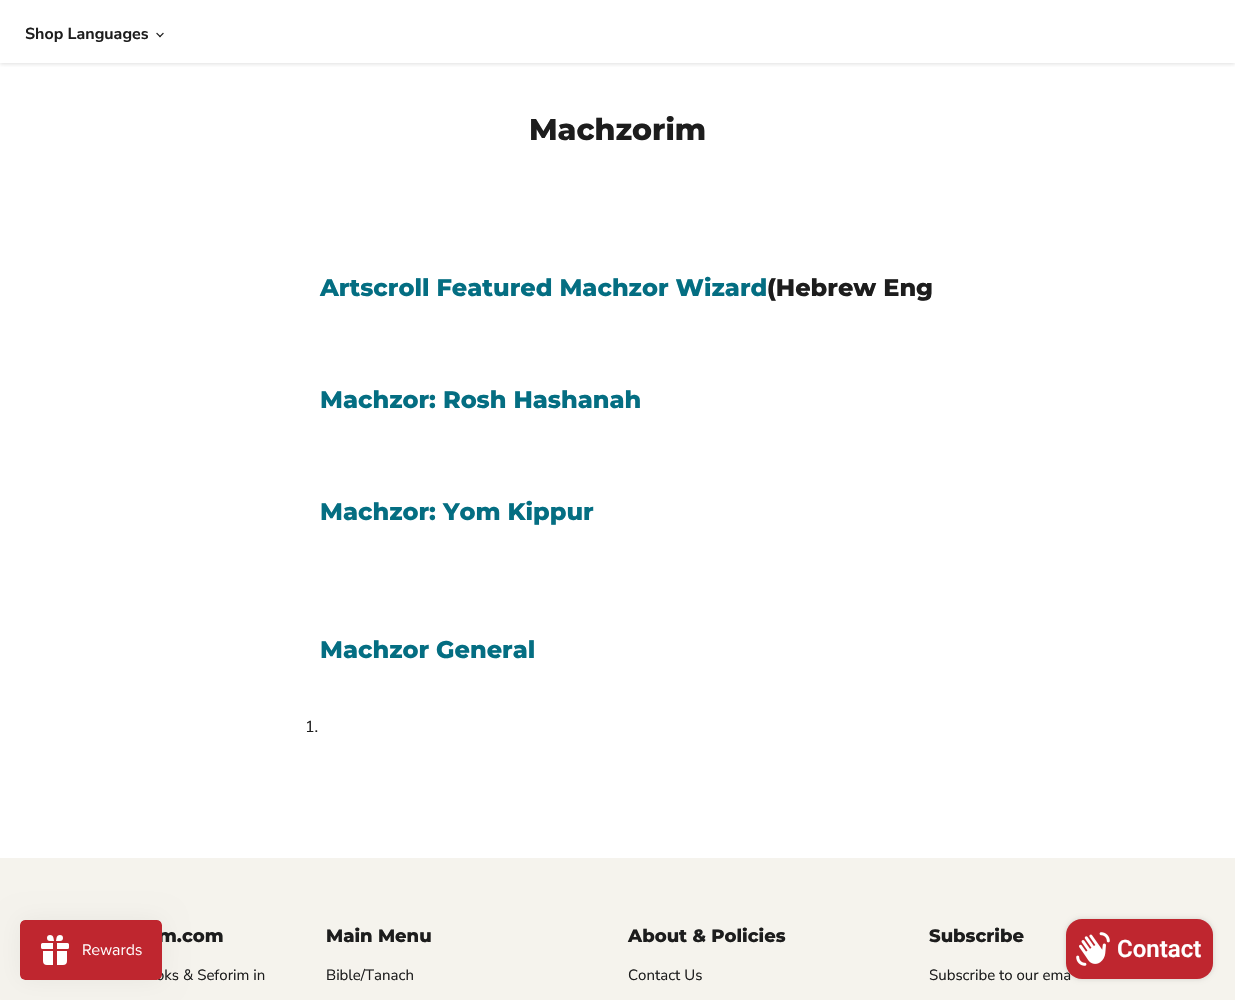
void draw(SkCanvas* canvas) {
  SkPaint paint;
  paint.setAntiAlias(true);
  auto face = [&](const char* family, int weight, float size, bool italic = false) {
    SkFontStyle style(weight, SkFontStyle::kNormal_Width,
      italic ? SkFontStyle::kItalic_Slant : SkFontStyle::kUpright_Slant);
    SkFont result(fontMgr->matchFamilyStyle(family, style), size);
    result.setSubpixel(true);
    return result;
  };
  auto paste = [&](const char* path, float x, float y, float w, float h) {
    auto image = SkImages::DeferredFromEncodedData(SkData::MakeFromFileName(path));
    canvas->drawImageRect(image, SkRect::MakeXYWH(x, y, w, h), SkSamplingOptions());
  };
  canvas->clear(0xffffffff);
  canvas->save();
  canvas->clipRect(SkRect::MakeXYWH(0, 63, 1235, 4));
  paint.setColor(0x40808080);
  paint.setMaskFilter(SkMaskFilter::MakeBlur(kNormal_SkBlurStyle, 2));
  canvas->drawRect(SkRect::MakeXYWH(0, -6, 1235, 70), paint);
  paint.setMaskFilter(nullptr);
  canvas->restore();
  paste("img/1.png", 156, 32, 8, 6);
  paint.setColor(0xfff5f3ed);
  canvas->drawRect(SkRect::MakeXYWH(0, 858, 1235, 142), paint);
  paint.setColor(0x0d000000);
  paint.setMaskFilter(SkMaskFilter::MakeBlur(kNormal_SkBlurStyle, 12.5f));
  canvas->drawRoundRect(SkRect::MakeXYWH(20, 920, 142, 60), 5, 5, paint);
  paint.setMaskFilter(nullptr);
  paint.setColor(0x26000000);
  paint.setMaskFilter(SkMaskFilter::MakeBlur(kNormal_SkBlurStyle, 2.5f));
  canvas->drawRoundRect(SkRect::MakeXYWH(1066, 919, 147, 60), 16, 16, paint);
  paint.setMaskFilter(nullptr);
  auto f0 = face("Nunito Sans", 700, 16);
  paint.setColor(0xff1d1d1d);
  canvas->drawString("Shop Languages", 25, 39, f0, paint);
  auto f1 = face("Montserrat", 800, 30);
  canvas->drawString("Machzorim", 529, 140, f1, paint);
  auto f2 = face("Montserrat", 800, 24);
  paint.setColor(0xff046e82);
  canvas->drawString("Artscroll Featured Machzor Wizard", 320, 296, f2, paint);
  paint.setColor(0xff1d1d1d);
  canvas->drawString("(Hebrew Eng", 767, 296, f2, paint);
  paint.setColor(0xff046e82);
  {
    const struct { const char* s; float x, y; } items[] = {
      {"Machzor: Rosh Hashanah", 320, 408},
      {"Machzor: Yom Kippur", 320, 520},
      {"Machzor General", 320, 658},
    };
    for (auto [s, x, y] : items) {
      canvas->drawString(s, x, y, f2, paint);
    }
  }
  auto f3 = face("Nunito Sans", 200, 16);
  paint.setColor(0xff1d1d1d);
  canvas->drawString("1.", 305, 732, f3, paint);
  auto f4 = face("Montserrat", 800, 18);
  canvas->drawString("m.com", 158, 942, f4, paint);
  auto f5 = face("Nunito Sans", 200, 15);
  canvas->drawString("oks & Seforim in", 156, 980, f5, paint);
  paste("img/2.png", 20, 920, 142, 60);
  canvas->drawString("Main Menu", 326, 942, f4, paint);
  canvas->drawString("Bible/Tanach", 326, 980, f5, paint);
  canvas->drawString("About & Policies", 628, 942, f4, paint);
  canvas->drawString("Contact Us", 628, 980, f5, paint);
  canvas->drawString("Subscribe", 929, 942, f4, paint);
  canvas->drawString("Subscribe to our ema", 929, 980, f5, paint);
  paint.setColor(0xffbf262f);
  canvas->drawRoundRect(SkRect::MakeXYWH(1066, 919, 147, 60), 16, 16, paint);
  paste("img/3.png", 1076, 932, 34, 34);
  auto f6 = face("Roboto", 600, 24);
  paint.setColor(0xffffffff);
  canvas->drawString("Contact", 1117, 957, f6, paint);
}
